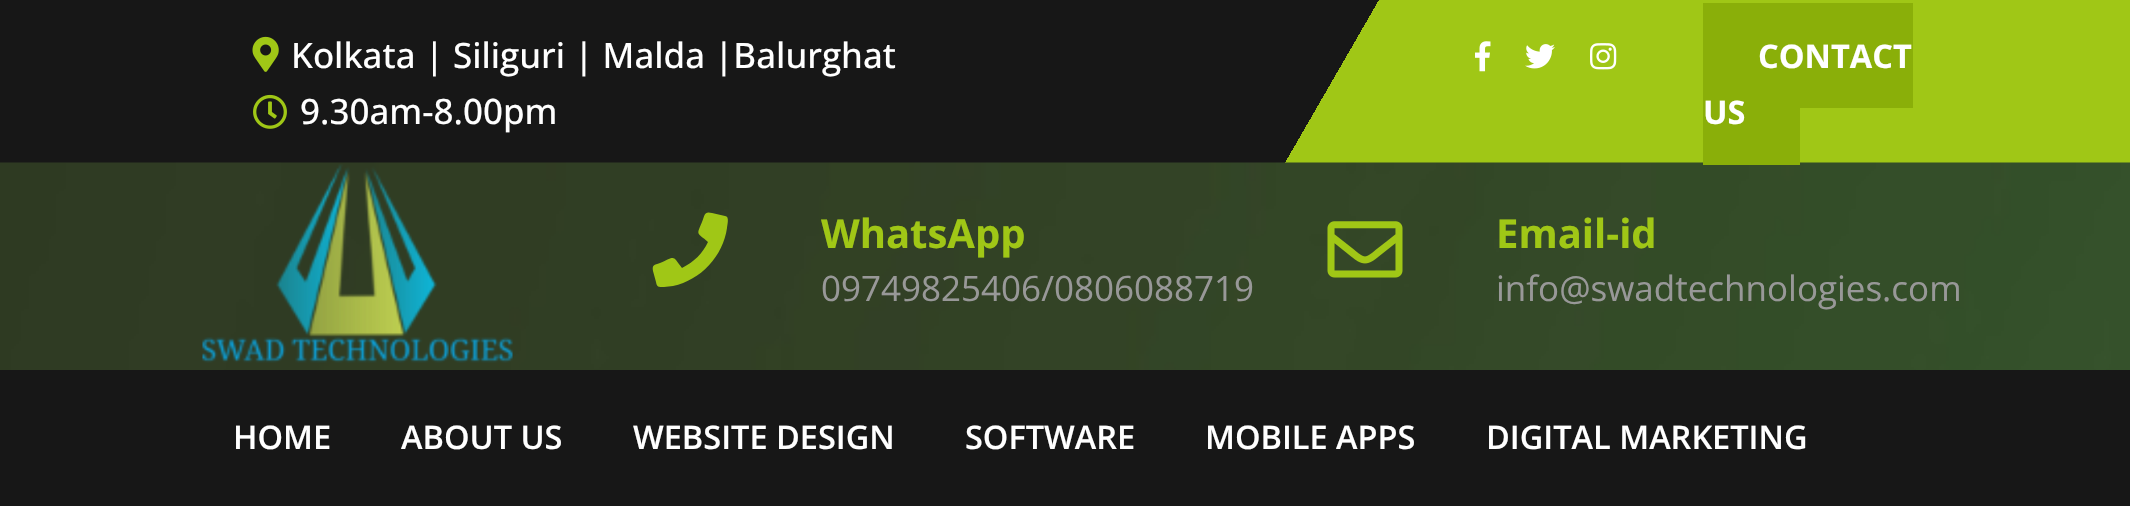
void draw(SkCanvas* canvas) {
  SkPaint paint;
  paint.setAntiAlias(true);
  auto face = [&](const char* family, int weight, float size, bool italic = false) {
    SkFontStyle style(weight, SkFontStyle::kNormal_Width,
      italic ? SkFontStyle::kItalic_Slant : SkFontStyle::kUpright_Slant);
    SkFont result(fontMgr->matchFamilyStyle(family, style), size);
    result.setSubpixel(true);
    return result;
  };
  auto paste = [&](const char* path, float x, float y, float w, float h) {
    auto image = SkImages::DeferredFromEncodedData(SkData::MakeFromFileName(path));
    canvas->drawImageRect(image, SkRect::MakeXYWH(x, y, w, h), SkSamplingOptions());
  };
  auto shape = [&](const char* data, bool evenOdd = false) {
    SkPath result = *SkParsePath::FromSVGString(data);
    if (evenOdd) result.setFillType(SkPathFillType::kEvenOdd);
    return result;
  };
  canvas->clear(0xffffffff);
  {
    const SkColor colors[] = {0xff171717, 0xffa0c716};
    const float stops[] = {0.62f, 0.62f};
    const SkPoint ends[] = {{231, -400}, {1899, 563}};
    paint.setShader(SkGradientShader::MakeLinear(ends, colors, stops, 2, SkTileMode::kClamp));
    paint.setAlpha(255);
  }
  canvas->drawRect(SkRect::MakeXYWH(0, 0, 2130, 163), paint);
  paste("img/1.png", 252, 36, 27, 36);
  paste("img/2.png", 253, 94, 34, 35);
  paste("img/3.png", 1475, 41, 16, 31);
  paste("img/4.png", 1525, 44, 30, 25);
  paste("img/5.png", 1590, 43, 27, 27);
  paint.setShader(nullptr);
  paint.setColor(0xff8aaf09);
  canvas->drawRect(SkRect::MakeXYWH(1703, 3, 210, 105), paint);
  paste("img/6.png", 0, 162, 2130, 208);
  canvas->drawRect(SkRect::MakeXYWH(1703, 108, 97, 57), paint);
  paste("img/7.png", 202, 164, 311, 199);
  paint.setColor(0xffa0c716);
  canvas->drawPath(shape("M725 216L712 213C704 211 705 215 702 222C696 236 697 232 708 242C703 253 694 262 682 268C672 255 676 256 660 263C654 265 652 265 653 271L656 282C657 287 658 287 664 287L673 286C701 280 723 256 727 228C727 226 730 216 725 216Z"), paint);
  paste("img/8.png", 1327, 221, 76, 57);
  paint.setColor(0xff171717);
  canvas->drawRect(SkRect::MakeXYWH(0, 370, 2130, 136), paint);
  auto f0 = face("Open Sans", 500, 35);
  paint.setColor(0xffffffff);
  canvas->drawString("Kolkata | Siliguri | Malda |Balurghat", 291, 68, f0, paint);
  canvas->drawString("9.30am-8.00pm", 300, 124, f0, paint);
  auto f1 = face("Open Sans", 700, 32.5f);
  canvas->drawString("CONTACT", 1758, 68, f1, paint);
  canvas->drawString("US", 1703, 124, f1, paint);
  auto f2 = face("Open Sans", 700, 40);
  paint.setColor(0xffa0c716);
  canvas->drawString("WhatsApp", 821, 248, f2, paint);
  auto f3 = face("Open Sans", 400, 35);
  paint.setColor(0xff989898);
  canvas->drawString("09749825406/0806088719", 821, 301, f3, paint);
  paint.setColor(0xffa0c716);
  canvas->drawString("Email-id", 1496, 248, f2, paint);
  paint.setColor(0xff989898);
  canvas->drawString("info@swadtechnologies.com", 1496, 301, f3, paint);
  auto f4 = face("Open Sans", 600, 32.5f);
  paint.setColor(0xffffffff);
  {
    const struct { const char* s; float x, y; } items[] = {
      {"HOME", 233, 449},
      {"ABOUT US", 401, 449},
      {"WEBSITE DESIGN", 633, 449},
      {"SOFTWARE", 965, 449},
      {"MOBILE APPS", 1205, 449},
      {"DIGITAL MARKETING", 1486, 449},
    };
    for (auto [s, x, y] : items) {
      canvas->drawString(s, x, y, f4, paint);
    }
  }
}
